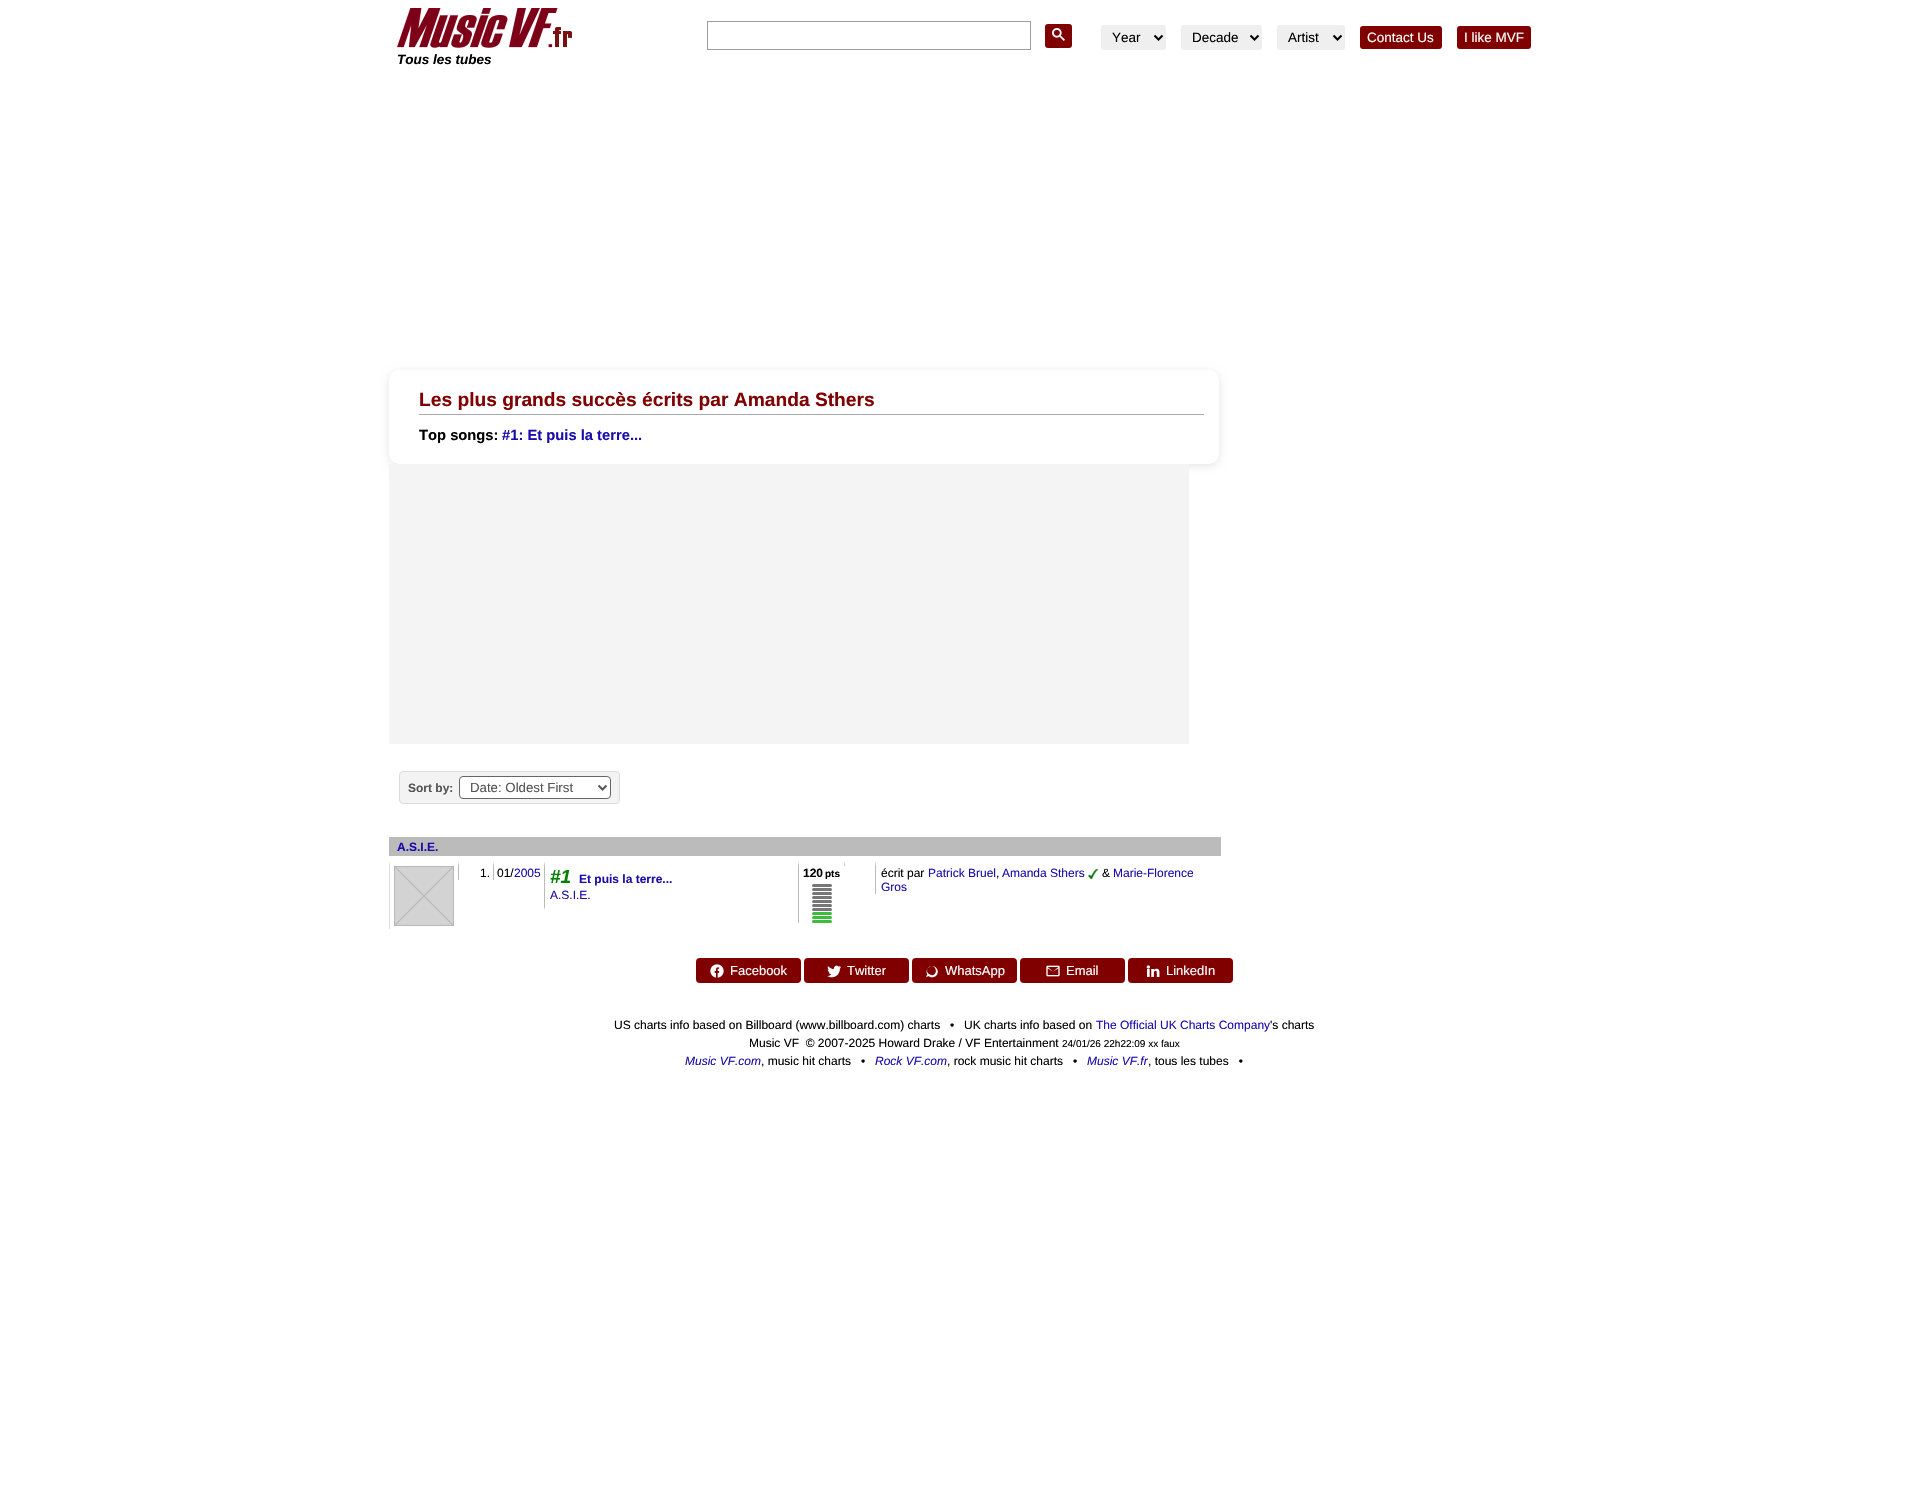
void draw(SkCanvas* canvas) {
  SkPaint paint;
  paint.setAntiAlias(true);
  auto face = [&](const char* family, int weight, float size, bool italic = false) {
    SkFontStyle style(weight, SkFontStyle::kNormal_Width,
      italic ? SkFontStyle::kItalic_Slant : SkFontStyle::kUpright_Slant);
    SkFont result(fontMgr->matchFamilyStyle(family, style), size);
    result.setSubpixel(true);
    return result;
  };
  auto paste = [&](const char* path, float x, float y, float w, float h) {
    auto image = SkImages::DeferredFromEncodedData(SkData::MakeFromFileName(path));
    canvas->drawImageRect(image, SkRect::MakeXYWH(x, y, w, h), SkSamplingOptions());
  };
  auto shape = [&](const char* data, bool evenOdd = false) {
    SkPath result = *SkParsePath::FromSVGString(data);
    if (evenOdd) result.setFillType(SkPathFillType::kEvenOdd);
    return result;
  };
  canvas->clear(0xffffffff);
  paint.setStroke(true);
  paint.setStrokeWidth(1);
  paint.setColor(0xff9e9e9e);
  canvas->drawRect(SkRect::MakeXYWH(707.5f, 21.5f, 323, 28), paint);
  paint.setStroke(false);
  paint.setColor(0xff800000);
  canvas->drawRoundRect(SkRect::MakeXYWH(1045, 24, 27, 24), 3, 3, paint);
  paste("img/1.png", 1052, 28, 13, 13);
  paint.setColor(0xffefefef);
  canvas->drawRoundRect(SkRect::MakeXYWH(1101, 25, 65, 25), 3, 3, paint);
  paint.setStroke(true);
  paint.setStrokeWidth(2);
  paint.setColor(0xff000000);
  canvas->drawPath(shape("M1154.5 35.5L1158.5 39.5L1162.5 35.5"), paint);
  paint.setStroke(false);
  paint.setColor(0xffefefef);
  canvas->drawRoundRect(SkRect::MakeXYWH(1181, 25, 81, 25), 3, 3, paint);
  paint.setStroke(true);
  paint.setColor(0xff000000);
  canvas->drawPath(shape("M1250.5 35.5L1254.5 39.5L1258.5 35.5"), paint);
  paint.setStroke(false);
  paint.setColor(0xffefefef);
  canvas->drawRoundRect(SkRect::MakeXYWH(1277, 25, 68, 25), 3, 3, paint);
  paint.setStroke(true);
  paint.setColor(0xff000000);
  canvas->drawPath(shape("M1333.5 35.5L1337.5 39.5L1341.5 35.5"), paint);
  paint.setStroke(false);
  paint.setColor(0xff800000);
  canvas->drawRoundRect(SkRect::MakeXYWH(1360, 26, 82, 23), 3, 3, paint);
  canvas->drawRoundRect(SkRect::MakeXYWH(1457, 26, 74, 23), 3, 3, paint);
  paste("img/2.png", 397, 8, 175, 40);
  paint.setColor(0x1a000000);
  paint.setMaskFilter(SkMaskFilter::MakeBlur(kNormal_SkBlurStyle, 4));
  canvas->drawRoundRect(SkRect::MakeXYWH(389, 372, 830, 94), 10, 10, paint);
  paint.setMaskFilter(nullptr);
  paint.setColor(0xffffffff);
  canvas->drawRoundRect(SkRect::MakeXYWH(389, 370, 830, 94), 10, 10, paint);
  paint.setColor(0xffaaaaaa);
  canvas->drawRect(SkRect::MakeXYWH(419, 414, 785, 1), paint);
  paint.setColor(0xfff4f4f4);
  canvas->drawRect(SkRect::MakeXYWH(389, 464, 800, 280), paint);
  paint.setColor(0xfff3f3f3);
  canvas->drawRoundRect(SkRect::MakeXYWH(399.5f, 771.5f, 220, 32), 3.5f, 3.5f, paint);
  paint.setStroke(true);
  paint.setStrokeWidth(1);
  paint.setColor(0xffdddddd);
  canvas->drawRoundRect(SkRect::MakeXYWH(399.5f, 771.5f, 220, 32), 3.5f, 3.5f, paint);
  paint.setStroke(false);
  paint.setColor(0xffffffff);
  canvas->drawRoundRect(SkRect::MakeXYWH(459.5f, 776.5f, 151, 22), 3.5f, 3.5f, paint);
  paint.setStroke(true);
  paint.setColor(0xff666666);
  canvas->drawRoundRect(SkRect::MakeXYWH(459.5f, 776.5f, 151, 22), 3.5f, 3.5f, paint);
  paint.setStrokeWidth(2);
  paint.setColor(0xff555555);
  canvas->drawPath(shape("M598.5 785.5L602.5 789.5L606.5 785.5"), paint);
  paint.setStroke(false);
  paint.setColor(0xffbbbbbb);
  canvas->drawRect(SkRect::MakeXYWH(389, 837, 832, 19), paint);
  paint.setColor(0xffdddddd);
  canvas->drawPath(shape("M389 929V861L390 866V929Z"), paint);
  paint.setColor(0xffd3d3d3);
  canvas->drawRect(SkRect::MakeXYWH(395, 867, 58, 58), paint);
  canvas->save();
  canvas->clipRect(SkRect::MakeXYWH(394, 866, 60, 60));
  paint.setStroke(true);
  paint.setColor(0xffb8b8b8);
  canvas->drawRect(SkRect::MakeXYWH(394, 866, 60, 60), paint);
  paint.setStrokeWidth(1.2f);
  paint.setColor(0xabaaaaaa);
  canvas->drawPath(shape("M394 866L454 926"), paint);
  canvas->drawPath(shape("M394 926L454 866"), paint);
  canvas->restore();
  paint.setStroke(false);
  paint.setColor(0xffbbbbbb);
  canvas->drawPath(shape("M458 880V861L459 866V880Z"), paint);
  canvas->drawPath(shape("M493 880V861L494 866V880Z"), paint);
  canvas->drawPath(shape("M544 910V861L545 866V907Z"), paint);
  canvas->drawPath(shape("M798 923V861L799 866V923Z"), paint);
  paint.setColor(0xff777777);
  canvas->drawRoundRect(SkRect::MakeXYWH(812, 884, 20, 3), 1.5f, 1.5f, paint);
  canvas->drawRoundRect(SkRect::MakeXYWH(812, 888, 20, 3), 1.5f, 1.5f, paint);
  canvas->drawRoundRect(SkRect::MakeXYWH(812, 892, 20, 3), 1.5f, 1.5f, paint);
  canvas->drawRoundRect(SkRect::MakeXYWH(812, 896, 20, 3), 1.5f, 1.5f, paint);
  canvas->drawRoundRect(SkRect::MakeXYWH(812, 900, 20, 3), 1.5f, 1.5f, paint);
  canvas->drawRoundRect(SkRect::MakeXYWH(812, 904, 20, 3), 1.5f, 1.5f, paint);
  canvas->drawRoundRect(SkRect::MakeXYWH(812, 908, 20, 3), 1.5f, 1.5f, paint);
  paint.setColor(0xff3ebc3e);
  canvas->drawRoundRect(SkRect::MakeXYWH(812, 912, 20, 3), 1.5f, 1.5f, paint);
  canvas->drawRoundRect(SkRect::MakeXYWH(812, 916, 20, 3), 1.5f, 1.5f, paint);
  canvas->drawRoundRect(SkRect::MakeXYWH(812, 920, 20, 3), 1.5f, 1.5f, paint);
  paint.setColor(0xffbbbbbb);
  canvas->drawPath(shape("M844 866V861L845 866ZM875 894V861L876 866V894Z"), paint);
  paste("img/3.png", 1088, 869, 10, 10);
  paint.setColor(0xff800000);
  canvas->drawRoundRect(SkRect::MakeXYWH(696, 958, 105, 25), 4, 4, paint);
  paste("img/4.png", 710, 964, 14, 14);
  canvas->drawRoundRect(SkRect::MakeXYWH(804, 958, 105, 25), 4, 4, paint);
  paste("img/5.png", 827, 965, 14, 13);
  canvas->drawRoundRect(SkRect::MakeXYWH(912, 958, 105, 25), 4, 4, paint);
  paste("img/6.png", 926, 966, 12, 12);
  canvas->drawRoundRect(SkRect::MakeXYWH(1020, 958, 105, 25), 4, 4, paint);
  paste("img/7.png", 1046, 965, 14, 12);
  canvas->drawRoundRect(SkRect::MakeXYWH(1128, 958, 105, 25), 4, 4, paint);
  paste("img/8.png", 1146, 965, 14, 12);
  auto f0 = face("Liberation Sans", 400, 13.5f);
  paint.setColor(0xff000000);
  {
    const struct { const char* s; float x, y; } items[] = {
      {"Year", 1112, 42},
      {"Decade", 1192, 42},
      {"Artist", 1288, 42},
    };
    for (auto [s, x, y] : items) {
      canvas->drawString(s, x, y, f0, paint);
    }
  }
  paint.setColor(0xffffffff);
  canvas->drawString("Contact Us", 1367, 42, f0, paint);
  canvas->drawString("I like MVF", 1464, 42, f0, paint);
  auto f1 = face("Liberation Sans", 700, 13.5f, true);
  paint.setColor(0xff000000);
  canvas->drawString("Tous les tubes", 397, 64, f1, paint);
  auto f2 = face("Liberation Sans", 700, 19.2f);
  paint.setColor(0xff800000);
  canvas->drawString("Les plus grands succès écrits par Amanda Sthers", 419, 406, f2, paint);
  auto f3 = face("Liberation Sans", 700, 14.75f);
  paint.setColor(0xff000000);
  canvas->drawString("Top songs:", 419, 440, f3, paint);
  paint.setColor(0xff1a0dab);
  canvas->drawString("#1: Et puis la terre...", 502, 440, f3, paint);
  auto f4 = face("Liberation Sans", 700, 12);
  paint.setColor(0xff555555);
  canvas->drawString("Sort by:", 408, 792, f4, paint);
  auto f5 = face("Liberation Sans", 400, 13.25f);
  canvas->drawString("Date: Oldest First", 470, 792, f5, paint);
  paint.setColor(0xff1a0dab);
  canvas->drawString("A.S.I.E.", 397, 851, f4, paint);
  auto f6 = face("Liberation Sans", 400, 12);
  paint.setColor(0xff000000);
  canvas->drawString("1.", 480, 877, f6, paint);
  canvas->drawString("01/", 497, 877, f6, paint);
  paint.setColor(0xff1a0dab);
  canvas->drawString("2005", 514, 877, f6, paint);
  auto f7 = face("Liberation Sans", 700, 19, true);
  paint.setColor(0xff008000);
  canvas->drawString("#1", 550, 883, f7, paint);
  paint.setColor(0xff1a0dab);
  canvas->drawString("Et puis la terre...", 579, 883, f4, paint);
  canvas->drawString("A.S.I.E.", 550, 899, f6, paint);
  paint.setColor(0xff000000);
  canvas->drawString("120", 803, 877, f4, paint);
  auto f8 = face("Liberation Sans", 700, 10);
  canvas->drawString("pts", 825, 877, f8, paint);
  canvas->drawString("écrit par", 881, 877, f6, paint);
  paint.setColor(0xff1a0dab);
  canvas->drawString("Patrick Bruel", 928, 877, f6, paint);
  paint.setColor(0xff000000);
  canvas->drawString(",", 996, 877, f6, paint);
  paint.setColor(0xff1a0dab);
  canvas->drawString("Amanda Sthers", 1002, 877, f6, paint);
  paint.setColor(0xff000000);
  canvas->drawString("&", 1102, 877, f6, paint);
  paint.setColor(0xff1a0dab);
  canvas->drawString("Marie-Florence", 1113, 877, f6, paint);
  canvas->drawString("Gros", 881, 891, f6, paint);
  auto f9 = face("Liberation Sans", 400, 13);
  paint.setColor(0xffffffff);
  {
    const struct { const char* s; float x, y; } items[] = {
      {"Facebook", 730, 975},
      {"Twitter", 847, 975},
      {"WhatsApp", 945, 975},
      {"Email", 1066, 975},
      {"LinkedIn", 1166, 975},
    };
    for (auto [s, x, y] : items) {
      canvas->drawString(s, x, y, f9, paint);
    }
  }
  paint.setColor(0xff000000);
  {
    const struct { const char* s; float x, y; } items[] = {
      {"US charts info based on Billboard (www.billboard.com) charts", 614, 1029},
      {"•", 950, 1029},
      {"UK charts info based on", 964, 1029},
    };
    for (auto [s, x, y] : items) {
      canvas->drawString(s, x, y, f6, paint);
    }
  }
  paint.setColor(0xff1a0dab);
  canvas->drawString("The Official UK Charts Company", 1096, 1029, f6, paint);
  paint.setColor(0xff000000);
  canvas->drawString("'s charts", 1270, 1029, f6, paint);
  canvas->drawString("Music VF  © 2007-2025 Howard Drake / VF Entertainment", 749, 1047, f6, paint);
  auto f10 = face("Liberation Sans", 400, 10);
  canvas->drawString("24/01/26 22h22:09 xx faux", 1062, 1047, f10, paint);
  auto f11 = face("Liberation Sans", 400, 12, true);
  paint.setColor(0xff1a0dab);
  canvas->drawString("Music VF.com", 685, 1065, f11, paint);
  paint.setColor(0xff000000);
  canvas->drawString(", music hit charts   •", 761, 1065, f6, paint);
  paint.setColor(0xff1a0dab);
  canvas->drawString("Rock VF.com", 875, 1065, f11, paint);
  paint.setColor(0xff000000);
  canvas->drawString(", rock music hit charts   •", 947, 1065, f6, paint);
  paint.setColor(0xff1a0dab);
  canvas->drawString("Music VF.fr", 1087, 1065, f11, paint);
  paint.setColor(0xff000000);
  canvas->drawString(", tous les tubes   •", 1148, 1065, f6, paint);
}
